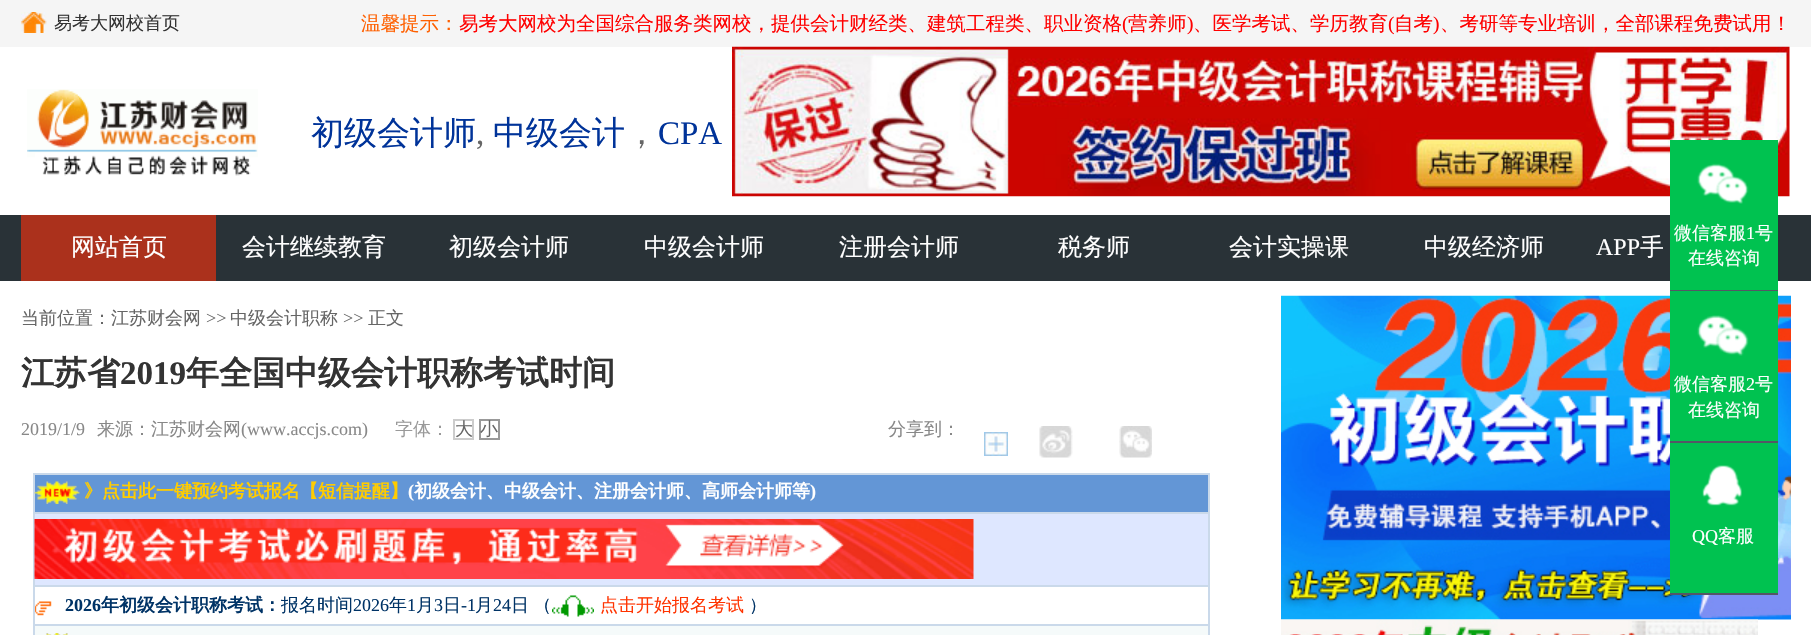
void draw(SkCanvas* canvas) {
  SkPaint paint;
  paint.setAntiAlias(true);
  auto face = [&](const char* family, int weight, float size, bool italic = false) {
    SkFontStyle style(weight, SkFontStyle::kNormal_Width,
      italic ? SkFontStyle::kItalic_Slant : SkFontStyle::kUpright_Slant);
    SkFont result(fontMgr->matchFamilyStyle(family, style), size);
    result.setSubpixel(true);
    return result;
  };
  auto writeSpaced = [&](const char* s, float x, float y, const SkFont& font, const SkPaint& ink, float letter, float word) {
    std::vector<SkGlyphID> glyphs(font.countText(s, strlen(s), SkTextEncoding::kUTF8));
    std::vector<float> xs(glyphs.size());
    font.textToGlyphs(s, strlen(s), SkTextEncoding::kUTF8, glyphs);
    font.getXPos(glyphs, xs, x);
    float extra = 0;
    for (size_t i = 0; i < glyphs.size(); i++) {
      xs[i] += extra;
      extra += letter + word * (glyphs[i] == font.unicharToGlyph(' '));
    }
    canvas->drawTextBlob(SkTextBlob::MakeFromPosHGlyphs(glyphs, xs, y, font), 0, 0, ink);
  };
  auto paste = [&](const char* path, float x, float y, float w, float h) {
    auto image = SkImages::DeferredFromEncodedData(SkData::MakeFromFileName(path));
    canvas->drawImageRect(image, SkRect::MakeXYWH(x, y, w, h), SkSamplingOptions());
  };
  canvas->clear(0xffffffff);
  paint.setColor(0xfff5f5f5);
  canvas->drawRect(SkRect::MakeXYWH(0, 0, 1811, 47), paint);
  paste("img/1.png", 21, 12, 26, 21);
  paste("img/2.png", 27, 89, 231, 87);
  paste("img/3.png", 732, 46, 1058, 151);
  {
    const struct { float x, y, w, h; SkColor color; } items[] = {
      {0, 215, 1811, 66, 0xff293237},
      {21, 215, 195, 66, 0xffab311c},
      {1670, 140, 108, 150, 0xff00c250},
    };
    for (auto [x, y, w, h, color] : items) {
      paint.setColor(color);
      canvas->drawRect(SkRect::MakeXYWH(x, y, w, h), paint);
    }
  }
  paste("img/4.png", 1697, 163, 52, 41);
  paint.setColor(0xff555666);
  canvas->drawRect(SkRect::MakeXYWH(1670, 290, 108, 1), paint);
  paste("img/15.png", 1281, 295, 510, 325);
  paint.setColor(0xff00c250);
  canvas->drawRect(SkRect::MakeXYWH(1670, 291, 108, 150), paint);
  paste("img/5.png", 1697, 315, 52, 41);
  paint.setColor(0xff555666);
  canvas->drawRect(SkRect::MakeXYWH(1670, 441, 108, 2), paint);
  paint.setColor(0xff00c250);
  canvas->drawRect(SkRect::MakeXYWH(1670, 443, 108, 150), paint);
  paste("img/6.png", 1702, 465, 40, 41);
  paint.setColor(0xff555666);
  canvas->drawRect(SkRect::MakeXYWH(1670, 593, 108, 2), paint);
  paint.setStroke(true);
  paint.setStrokeWidth(2);
  paint.setColor(0xffcccccc);
  canvas->drawRect(SkRect::MakeXYWH(454, 420, 19, 19), paint);
  paint.setColor(0xff999999);
  canvas->drawRect(SkRect::MakeXYWH(480, 420, 19, 19), paint);
  paste("img/7.png", 984, 432, 24, 24);
  paste("img/8.png", 1039, 426, 34, 32);
  paste("img/9.png", 1119, 426, 33, 32);
  paint.setStroke(false);
  {
    const struct { float x, y, w, h; SkColor color; } items[] = {
      {35, 475, 1173, 37, 0xff6396d6},
      {33, 473, 1176, 2, 0xffcad9ea},
      {33, 512, 1176, 2, 0xffcad9ea},
      {33, 585, 1176, 2, 0xffcad9ea},
      {33, 624, 1176, 2, 0xffcad9ea},
      {1208, 624, 2, 11, 0xffcad9ea},
      {1208, 585, 2, 41, 0xffcad9ea},
      {1208, 512, 2, 75, 0xffcad9ea},
      {1208, 473, 2, 40, 0xffcad9ea},
      {33, 624, 2, 11, 0xffcad9ea},
      {33, 585, 2, 41, 0xffcad9ea},
      {33, 512, 2, 75, 0xffcad9ea},
      {33, 473, 2, 40, 0xffcad9ea},
    };
    for (auto [x, y, w, h, color] : items) {
      paint.setColor(color);
      canvas->drawRect(SkRect::MakeXYWH(x, y, w, h), paint);
    }
  }
  paste("img/10.png", 34, 481, 46, 23);
  paint.setColor(0xffdee7ff);
  canvas->drawRect(SkRect::MakeXYWH(35, 514, 1173, 71), paint);
  paste("img/11.png", 34, 519, 940, 60);
  paste("img/12.png", 35, 587, 1173, 37);
  paste("img/13.png", 552, 595, 42, 22);
  paste("img/14.png", 35, 626, 1173, 9);
  paste("img/16.png", 1281, 619, 477, 16);
  auto f0 = face("WenQuanYi Zen Hei", 500, 18);
  paint.setColor(0xff333333);
  canvas->drawString("易考大网校首页", 54, 29, f0, paint);
  auto f1 = face("WenQuanYi Zen Hei", 500, 19.5f);
  paint.setColor(0xffff6000);
  canvas->drawString("温馨提示：", 361, 30, f1, paint);
  paint.setColor(0xffff0000);
  canvas->drawString("易考大网校为全国综合服务类网校，提供会计财经类、建筑工程类、职业资格", 459, 30, f1, paint);
  auto f2 = face("Liberation Serif", 400, 19.5f);
  canvas->drawString("(", 1122, 30, f2, paint);
  canvas->drawString("营养师", 1128, 30, f1, paint);
  canvas->drawString(")", 1187, 30, f2, paint);
  canvas->drawString("、医学考试、学历教育", 1193, 30, f1, paint);
  canvas->drawString("(", 1388, 30, f2, paint);
  canvas->drawString("自考", 1394, 30, f1, paint);
  canvas->drawString(")", 1433, 30, f2, paint);
  canvas->drawString("、考研等专业培训，全部课程免费试用！", 1440, 30, f1, paint);
  auto f3 = face("WenQuanYi Zen Hei", 500, 33);
  paint.setColor(0xff003399);
  canvas->drawString("初级会计师", 311, 144, f3, paint);
  auto f4 = face("Liberation Serif", 400, 33);
  paint.setColor(0xff666666);
  canvas->drawString(",", 476, 144, f4, paint);
  paint.setColor(0xff003399);
  canvas->drawString("中级会计", 493, 144, f3, paint);
  paint.setColor(0xff666666);
  canvas->drawString("，", 625, 144, f3, paint);
  paint.setColor(0xff003399);
  canvas->drawString("CPA", 658, 144, f4, paint);
  auto f5 = face("WenQuanYi Zen Hei", 500, 24);
  paint.setColor(0xffffffff);
  {
    const struct { const char* s; float x, y; } items[] = {
      {"网站首页", 71, 255},
      {"会计继续教育", 242, 255},
      {"初级会计师", 449, 255},
      {"中级会计师", 644, 255},
      {"注册会计师", 839, 255},
      {"税务师", 1058, 255},
      {"会计实操课", 1229, 255},
      {"中级经济师", 1424, 255},
    };
    for (auto [s, x, y] : items) {
      canvas->drawString(s, x, y, f5, paint);
    }
  }
  auto f6 = face("Liberation Serif", 400, 24);
  canvas->drawString("APP", 1596, 255, f6, paint);
  canvas->drawString("手", 1640, 255, f5, paint);
  canvas->drawString("微信客服", 1674, 239, f0, paint);
  auto f7 = face("Liberation Serif", 400, 18);
  canvas->drawString("1", 1746, 239, f7, paint);
  {
    const struct { const char* s; float x, y; } items[] = {
      {"号", 1755, 239},
      {"在线咨询", 1688, 264},
      {"微信客服", 1674, 390},
    };
    for (auto [s, x, y] : items) {
      canvas->drawString(s, x, y, f0, paint);
    }
  }
  canvas->drawString("2", 1746, 390, f7, paint);
  canvas->drawString("号", 1755, 390, f0, paint);
  canvas->drawString("在线咨询", 1688, 416, f0, paint);
  canvas->drawString("QQ", 1692, 542, f7, paint);
  canvas->drawString("客服", 1718, 542, f0, paint);
  paint.setColor(0xff666666);
  canvas->drawString("当前位置：江苏财会网", 21, 324, f0, paint);
  canvas->drawString(">>", 206, 324, f7, paint);
  canvas->drawString("中级会计职称", 230, 324, f0, paint);
  canvas->drawString(">>", 343, 324, f7, paint);
  canvas->drawString("正文", 368, 324, f0, paint);
  auto f8 = face("WenQuanYi Zen Hei", 700, 33);
  paint.setColor(0xff333333);
  canvas->drawString("江苏省", 21, 384, f8, paint);
  auto f9 = face("Liberation Serif", 700, 33);
  canvas->drawString("2019", 120, 384, f9, paint);
  canvas->drawString("年全国中级会计职称考试时间", 186, 384, f8, paint);
  paint.setColor(0xff888888);
  canvas->drawString("2019/1/9", 21, 435, f7, paint);
  canvas->drawString("来源：江苏财会网", 97, 435, f0, paint);
  canvas->drawString("(www.accjs.com)", 241, 435, f7, paint);
  paint.setColor(0xff999999);
  canvas->drawString("字体：", 395, 435, f0, paint);
  paint.setColor(0xff666666);
  canvas->drawString("大", 455, 435, f0, paint);
  canvas->drawString("小", 480, 435, f0, paint);
  paint.setColor(0xff888888);
  canvas->drawString("分享到：", 888, 435, f0, paint);
  auto f10 = face("WenQuanYi Zen Hei", 700, 18);
  paint.setColor(0xffffcc00);
  canvas->drawString("》点击此一键预约考试报名【短信提醒】", 84, 497, f10, paint);
  auto f11 = face("Liberation Serif", 700, 18);
  paint.setColor(0xffffffff);
  canvas->drawString("(", 408, 497, f11, paint);
  canvas->drawString("初级会计、中级会计、注册会计师、高师会计师等", 414, 497, f10, paint);
  canvas->drawString(")", 810, 497, f11, paint);
  paint.setColor(0xff003366);
  canvas->drawString("2026", 65, 611, f11, paint);
  canvas->drawString("年初级会计职称考试：", 101, 611, f10, paint);
  canvas->drawString("报名时间", 281, 611, f0, paint);
  canvas->drawString("2026", 353, 611, f7, paint);
  canvas->drawString("年", 389, 611, f0, paint);
  canvas->drawString("1", 407, 611, f7, paint);
  canvas->drawString("月", 416, 611, f0, paint);
  canvas->drawString("3", 434, 611, f7, paint);
  canvas->drawString("日", 443, 611, f0, paint);
  canvas->drawString("-1", 461, 611, f7, paint);
  canvas->drawString("月", 475, 611, f0, paint);
  canvas->drawString("24", 493, 611, f7, paint);
  writeSpaced("日 （", 511, 611, f0, paint, 0, -1);
  paint.setColor(0xffff3300);
  canvas->drawString("点击开始报名考试", 600, 611, f0, paint);
  paint.setColor(0xff003366);
  canvas->drawString("）", 749, 611, f0, paint);
}
